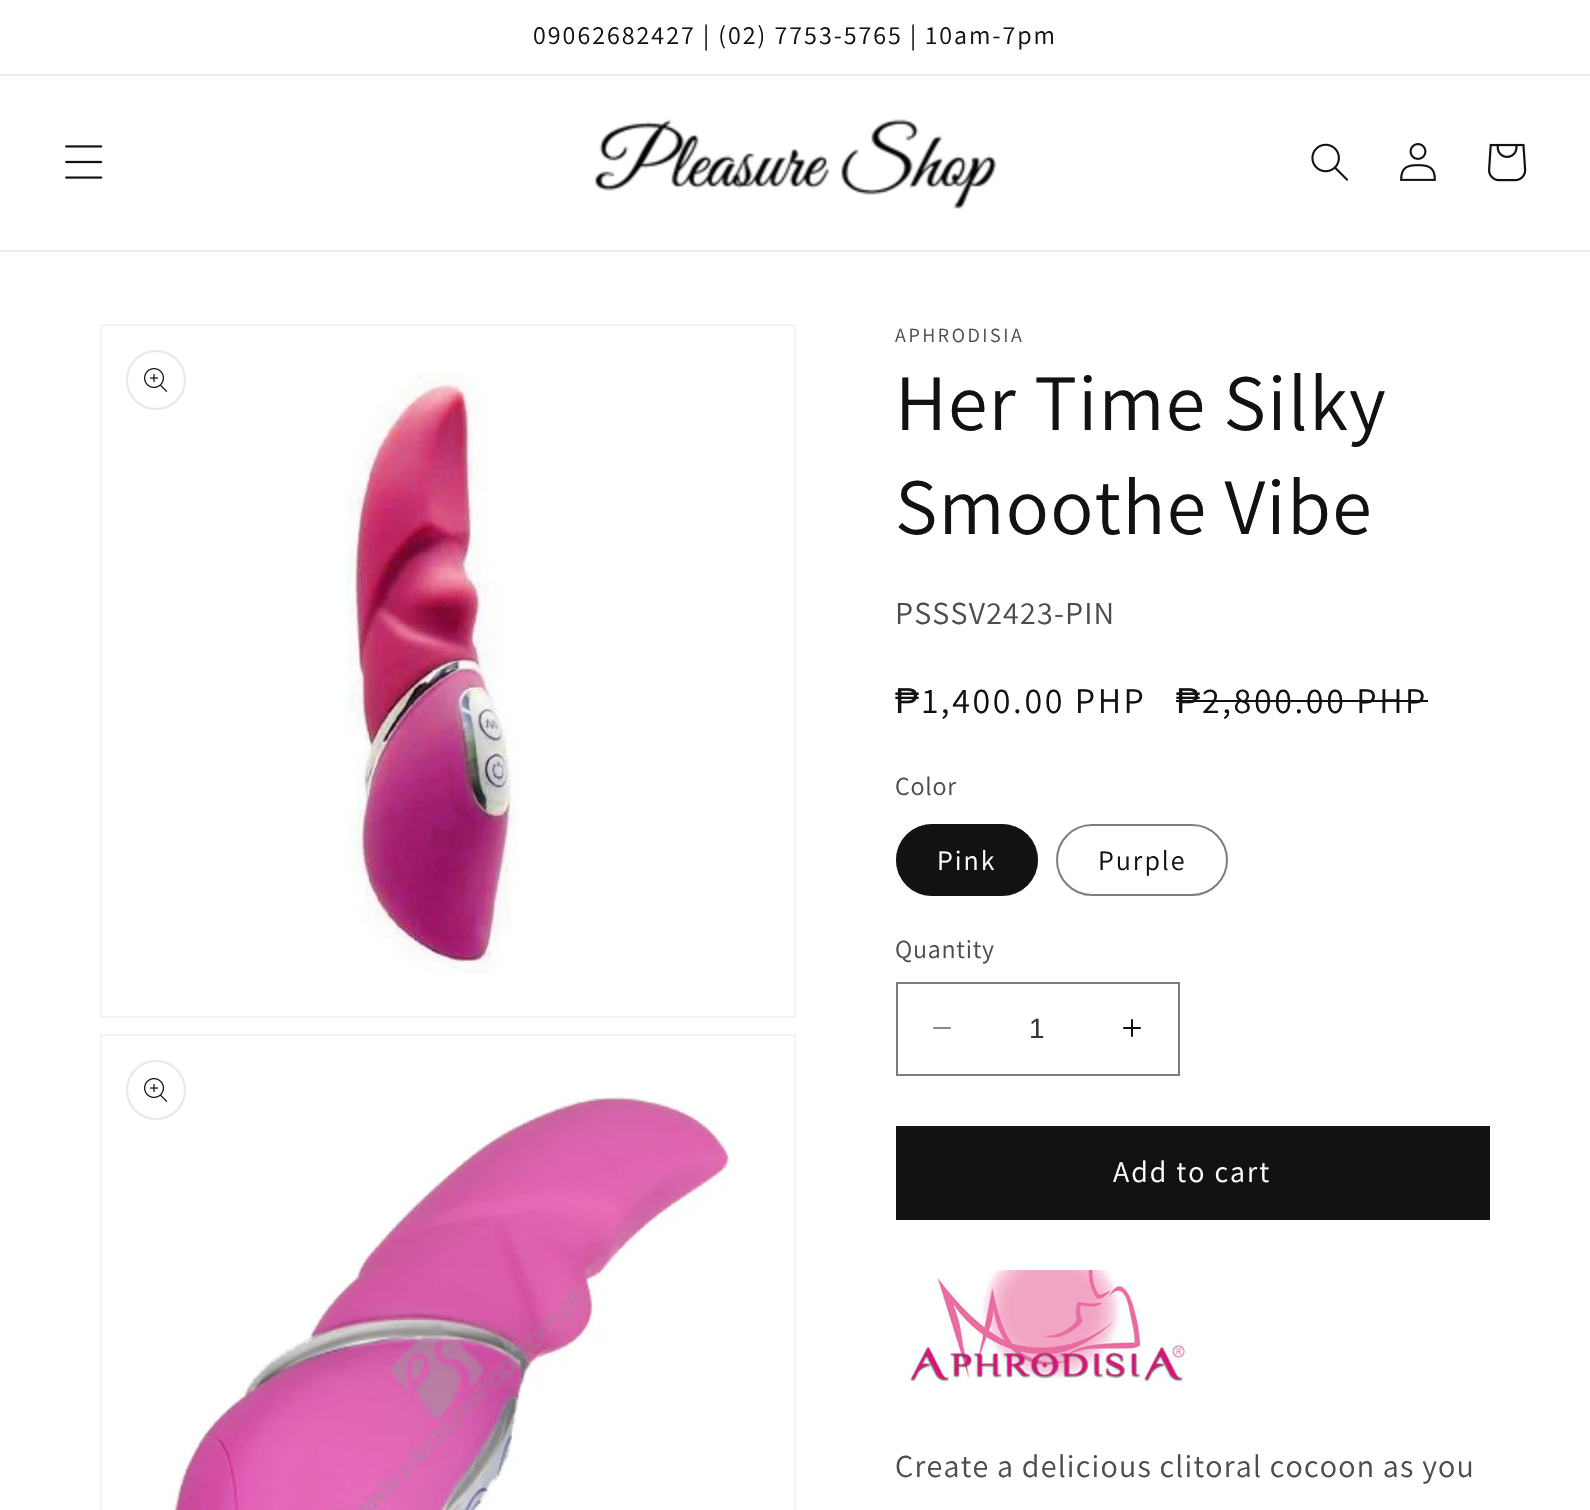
void draw(SkCanvas* canvas) {
  SkPaint paint;
  paint.setAntiAlias(true);
  auto face = [&](const char* family, int weight, float size, bool italic = false) {
    SkFontStyle style(weight, SkFontStyle::kNormal_Width,
      italic ? SkFontStyle::kItalic_Slant : SkFontStyle::kUpright_Slant);
    SkFont result(fontMgr->matchFamilyStyle(family, style), size);
    result.setSubpixel(true);
    return result;
  };
  auto writeSpaced = [&](const char* s, float x, float y, const SkFont& font, const SkPaint& ink, float letter, float word) {
    std::vector<SkGlyphID> glyphs(font.countText(s, strlen(s), SkTextEncoding::kUTF8));
    std::vector<float> xs(glyphs.size());
    font.textToGlyphs(s, strlen(s), SkTextEncoding::kUTF8, glyphs);
    font.getXPos(glyphs, xs, x);
    float extra = 0;
    for (size_t i = 0; i < glyphs.size(); i++) {
      xs[i] += extra;
      extra += letter + word * (glyphs[i] == font.unicharToGlyph(' '));
    }
    canvas->drawTextBlob(SkTextBlob::MakeFromPosHGlyphs(glyphs, xs, y, font), 0, 0, ink);
  };
  auto paste = [&](const char* path, float x, float y, float w, float h) {
    auto image = SkImages::DeferredFromEncodedData(SkData::MakeFromFileName(path));
    canvas->drawImageRect(image, SkRect::MakeXYWH(x, y, w, h), SkSamplingOptions());
  };
  canvas->clear(0xffffffff);
  paint.setColor(0xffececec);
  canvas->drawRect(SkRect::MakeXYWH(0, 74, 1590, 2), paint);
  canvas->drawRect(SkRect::MakeXYWH(0, 250, 1590, 2), paint);
  paste("img/1.png", 65, 145, 38, 34);
  paste("img/2.png", 595, 119, 401, 90);
  paste("img/3.png", 1311, 143, 37, 38);
  paste("img/4.png", 1400, 143, 36, 38);
  paste("img/5.png", 1488, 143, 39, 39);
  paint.setStroke(true);
  paint.setStrokeWidth(2);
  paint.setColor(0xfff3f3f3);
  canvas->drawRect(SkRect::MakeXYWH(101, 325, 694, 692), paint);
  paint.setColor(0xffe7e7e7);
  canvas->drawCircle(156, 380, 29, paint);
  paste("img/6.png", 144, 368, 24, 24);
  paste("img/7.png", 346, 370, 172, 604);
  paint.setColor(0xfff3f3f3);
  canvas->drawRect(SkRect::MakeXYWH(101, 1035, 694, 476), paint);
  paste("img/8.png", 169, 1094, 562, 416);
  paint.setColor(0xffe7e7e7);
  canvas->drawCircle(156, 1090, 29, paint);
  paste("img/6.png", 144, 1078, 24, 24);
  paint.setStroke(false);
  paint.setColor(0xff121212);
  canvas->drawRect(SkRect::MakeXYWH(1176, 700, 252, 2), paint);
  canvas->drawRoundRect(SkRect::MakeXYWH(896, 824, 142, 72), 36, 36, paint);
  paint.setStroke(true);
  paint.setColor(0x8c121212);
  canvas->drawRoundRect(SkRect::MakeXYWH(897, 825, 140, 70), 35, 35, paint);
  paint.setColor(0xff7d7d7d);
  canvas->drawRoundRect(SkRect::MakeXYWH(1057, 825, 170, 70), 35, 35, paint);
  paste("img/9.png", 933, 1027, 18, 2);
  paste("img/10.png", 1123, 1019, 18, 18);
  canvas->drawRect(SkRect::MakeXYWH(897, 983, 282, 92), paint);
  paint.setStroke(false);
  paint.setColor(0xff121212);
  canvas->drawRect(SkRect::MakeXYWH(896, 1126, 594, 94), paint);
  paste("img/11.png", 908, 1270, 281, 112);
  auto f0 = face("Assistant", 400, 26);
  writeSpaced("09062682427 | (02) 7753-5765 | 10am-7pm", 533, 44, f0, paint, 2, 0);
  auto f1 = face("Assistant", 400, 20);
  paint.setColor(0xff4d4d4d);
  writeSpaced("APHRODISIA", 895, 342, f1, paint, 2.6f, 0);
  auto f2 = face("Assistant", 400, 80);
  paint.setColor(0xff121212);
  writeSpaced("Her Time Silky", 895, 430, f2, paint, 1.2f, 0);
  writeSpaced("Smoothe Vibe", 895, 534, f2, paint, 1.2f, 0);
  auto f3 = face("Assistant", 400, 32);
  paint.setColor(0xff4d4d4d);
  writeSpaced("PSSSV2423-PIN", 895, 624, f3, paint, 1.2f, 0);
  auto f4 = face("Liberation Sans", 400, 36);
  paint.setColor(0xff121212);
  writeSpaced("₱", 895, 713, f4, paint, 2.6f, 0);
  auto f5 = face("Assistant", 400, 36);
  writeSpaced("1,400.00 PHP", 922, 713, f5, paint, 2.6f, 0);
  writeSpaced("₱", 1176, 713, f4, paint, 2.6f, 0);
  writeSpaced("2,800.00 PHP", 1202, 713, f5, paint, 2.6f, 0);
  paint.setColor(0xff4d4d4d);
  writeSpaced("Color", 895, 795, f0, paint, 0.75f, 0);
  auto f6 = face("Assistant", 400, 28);
  paint.setColor(0xffffffff);
  writeSpaced("Pink", 937, 870, f6, paint, 2, 0);
  paint.setColor(0xff121212);
  writeSpaced("Purple", 1098, 870, f6, paint, 2, 0);
  paint.setColor(0xff4d4d4d);
  writeSpaced("Quantity", 895, 958, f0, paint, 0.75f, 0);
  auto f7 = face("Liberation Sans", 400, 28);
  paint.setColor(0xff363636);
  canvas->drawString("1", 1029, 1038, f7, paint);
  auto f8 = face("Assistant", 400, 30);
  paint.setColor(0xffffffff);
  writeSpaced("Add to cart", 1113, 1182, f8, paint, 2, 0);
  paint.setColor(0xff4d4d4d);
  writeSpaced("Create a delicious clitoral cocoon as you", 895, 1477, f3, paint, 1.2f, 0);
}
